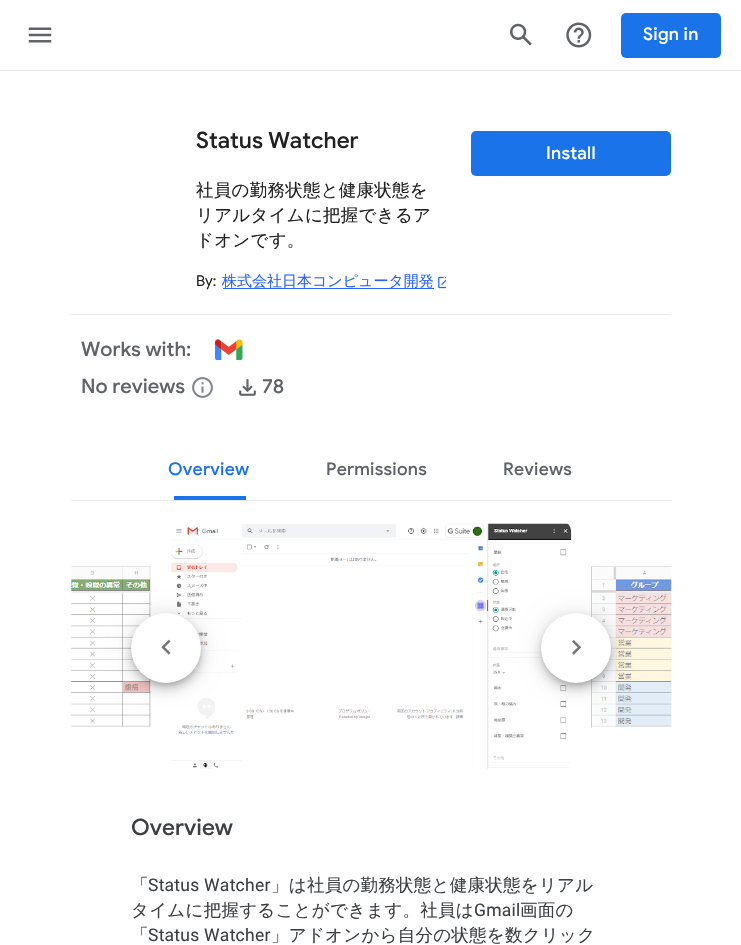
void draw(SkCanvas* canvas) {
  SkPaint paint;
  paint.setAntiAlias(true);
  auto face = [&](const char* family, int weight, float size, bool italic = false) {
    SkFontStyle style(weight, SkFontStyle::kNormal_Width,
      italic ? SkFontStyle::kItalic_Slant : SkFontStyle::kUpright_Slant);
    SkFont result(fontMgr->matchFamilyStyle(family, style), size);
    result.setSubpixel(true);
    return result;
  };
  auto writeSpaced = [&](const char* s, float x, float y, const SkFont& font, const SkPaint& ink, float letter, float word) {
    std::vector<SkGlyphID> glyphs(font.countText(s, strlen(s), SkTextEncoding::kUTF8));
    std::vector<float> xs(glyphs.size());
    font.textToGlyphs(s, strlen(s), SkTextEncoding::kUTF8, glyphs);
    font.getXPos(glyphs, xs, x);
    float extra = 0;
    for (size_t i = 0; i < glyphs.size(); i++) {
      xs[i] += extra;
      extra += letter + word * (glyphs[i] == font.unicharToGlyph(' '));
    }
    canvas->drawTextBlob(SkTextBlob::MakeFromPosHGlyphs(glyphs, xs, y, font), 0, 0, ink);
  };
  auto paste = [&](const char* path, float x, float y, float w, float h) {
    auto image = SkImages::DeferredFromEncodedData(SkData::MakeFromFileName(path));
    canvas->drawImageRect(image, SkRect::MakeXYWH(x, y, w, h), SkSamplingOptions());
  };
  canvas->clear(0xffffffff);
  paint.setColor(0xffe8eaed);
  canvas->drawRect(SkRect::MakeXYWH(0, 70, 741, 1), paint);
  paste("img/1.png", 28, 27, 24, 16);
  paste("img/2.png", 510, 23, 22, 23);
  paste("img/3.png", 566, 22, 26, 26);
  paint.setColor(0xff1a73e8);
  canvas->drawRoundRect(SkRect::MakeXYWH(621, 13, 100, 45), 5, 5, paint);
  paint.setColor(0xff2962ff);
  canvas->drawRect(SkRect::MakeXYWH(223, 288, 211, 1), paint);
  paste("img/4.png", 438, 276, 8, 13);
  paint.setColor(0xff1a73e8);
  canvas->drawRoundRect(SkRect::MakeXYWH(471, 131, 200, 45), 5, 5, paint);
  paint.setColor(0xffe8eaed);
  canvas->drawRect(SkRect::MakeXYWH(71, 314, 600, 1), paint);
  paste("img/5.png", 215, 339, 28, 21);
  paste("img/6.png", 192, 377, 21, 21);
  paste("img/7.png", 239, 379, 17, 17);
  paint.setColor(0xff1a73e8);
  canvas->drawRect(SkRect::MakeXYWH(174, 496, 72, 4), paint);
  paint.setColor(0xffe8eaed);
  canvas->drawRect(SkRect::MakeXYWH(71, 500, 600, 1), paint);
  paste("img/8.png", 71, 566, 80, 161);
  paste("img/9.png", 171, 523, 401, 246);
  paste("img/10.png", 591, 566, 81, 162);
  paint.setColor(0x33000000);
  paint.setMaskFilter(SkMaskFilter::MakeBlur(kNormal_SkBlurStyle, 3));
  canvas->drawRoundRect(SkRect::MakeXYWH(133, 618, 67, 67), 33.5f, 33.5f, paint);
  paint.setMaskFilter(nullptr);
  paint.setColor(0x1f000000);
  paint.setMaskFilter(SkMaskFilter::MakeBlur(kNormal_SkBlurStyle, 11));
  canvas->drawRoundRect(SkRect::MakeXYWH(131, 614, 70, 70), 35, 35, paint);
  paint.setMaskFilter(nullptr);
  paint.setColor(0x24000000);
  paint.setMaskFilter(SkMaskFilter::MakeBlur(kNormal_SkBlurStyle, 6));
  canvas->drawRoundRect(SkRect::MakeXYWH(131, 620, 70, 70), 35, 35, paint);
  paint.setMaskFilter(nullptr);
  paint.setColor(0xffffffff);
  canvas->drawCircle(166, 648, 35, paint);
  paste("img/11.png", 161, 639, 10, 16);
  paint.setColor(0x33000000);
  paint.setMaskFilter(SkMaskFilter::MakeBlur(kNormal_SkBlurStyle, 3));
  canvas->drawRoundRect(SkRect::MakeXYWH(543, 618, 67, 67), 33.5f, 33.5f, paint);
  paint.setMaskFilter(nullptr);
  paint.setColor(0x1f000000);
  paint.setMaskFilter(SkMaskFilter::MakeBlur(kNormal_SkBlurStyle, 11));
  canvas->drawRoundRect(SkRect::MakeXYWH(541, 614, 70, 70), 35, 35, paint);
  paint.setMaskFilter(nullptr);
  paint.setColor(0x24000000);
  paint.setMaskFilter(SkMaskFilter::MakeBlur(kNormal_SkBlurStyle, 6));
  canvas->drawRoundRect(SkRect::MakeXYWH(541, 620, 70, 70), 35, 35, paint);
  paint.setMaskFilter(nullptr);
  paint.setColor(0xffffffff);
  canvas->drawCircle(576, 648, 35, paint);
  paste("img/12.png", 572, 640, 10, 15);
  auto f0 = face("Google Sans", 500, 17.5f);
  writeSpaced("Sign in", 643, 40, f0, paint, 0.25f, 0);
  auto f1 = face("Google Sans", 500, 22.5f);
  paint.setColor(0xff212121);
  canvas->drawString("Status Watcher", 196, 148, f1, paint);
  auto f2 = face("WenQuanYi Zen Hei", 500, 17.5f);
  {
    const struct { const char* s; float x, y; } items[] = {
      {"社員の勤務状態と健康状態を", 196, 196},
      {"リアルタイムに把握できるア", 196, 221},
      {"ドオンです。", 196, 246},
    };
    for (auto [s, x, y] : items) {
      writeSpaced(s, x, y, f2, paint, 0.25f, 0);
    }
  }
  auto f3 = face("Google Sans", 400, 15);
  canvas->drawString("By:", 196, 286, f3, paint);
  auto f4 = face("WenQuanYi Zen Hei", 500, 15);
  paint.setColor(0xff2962ff);
  canvas->drawString("株式会社日本コンピュータ開発", 222, 286, f4, paint);
  paint.setColor(0xffffffff);
  writeSpaced("Install", 546, 159, f0, paint, 0.25f, 0);
  auto f5 = face("Google Sans", 500, 20);
  paint.setColor(0xff5f6368);
  {
    const struct { const char* s; float x, y; } items[] = {
      {"Works with:", 81, 356},
      {"No reviews", 81, 393},
      {"78", 262, 393},
    };
    for (auto [s, x, y] : items) {
      canvas->drawString(s, x, y, f5, paint);
    }
  }
  paint.setColor(0xff1a73e8);
  writeSpaced("Overview", 168, 475, f0, paint, 0.25f, 0);
  paint.setColor(0xff5f6368);
  writeSpaced("Permissions", 326, 475, f0, paint, 0.25f, 0);
  writeSpaced("Reviews", 503, 475, f0, paint, 0.25f, 0);
  paint.setColor(0xff3c4043);
  canvas->drawString("Overview", 131, 835, f1, paint);
  writeSpaced("「", 131, 891, f2, paint, 0.25f, 0);
  auto f6 = face("Roboto", 400, 17.5f);
  writeSpaced("Status Watcher", 148, 891, f6, paint, 0.25f, 0);
  writeSpaced("」は社員の勤務状態と健康状態をリアル", 271, 891, f2, paint, 0.25f, 0);
  writeSpaced("タイムに把握することができます。社員は", 131, 916, f2, paint, 0.25f, 0);
  writeSpaced("Gmail", 474, 916, f6, paint, 0.25f, 0);
  writeSpaced("画面の", 520, 916, f2, paint, 0.25f, 0);
  writeSpaced("「", 131, 941, f2, paint, 0.25f, 0);
  writeSpaced("Status Watcher", 148, 941, f6, paint, 0.25f, 0);
  writeSpaced("」アドオンから自分の状態を数クリック", 271, 941, f2, paint, 0.25f, 0);
}
